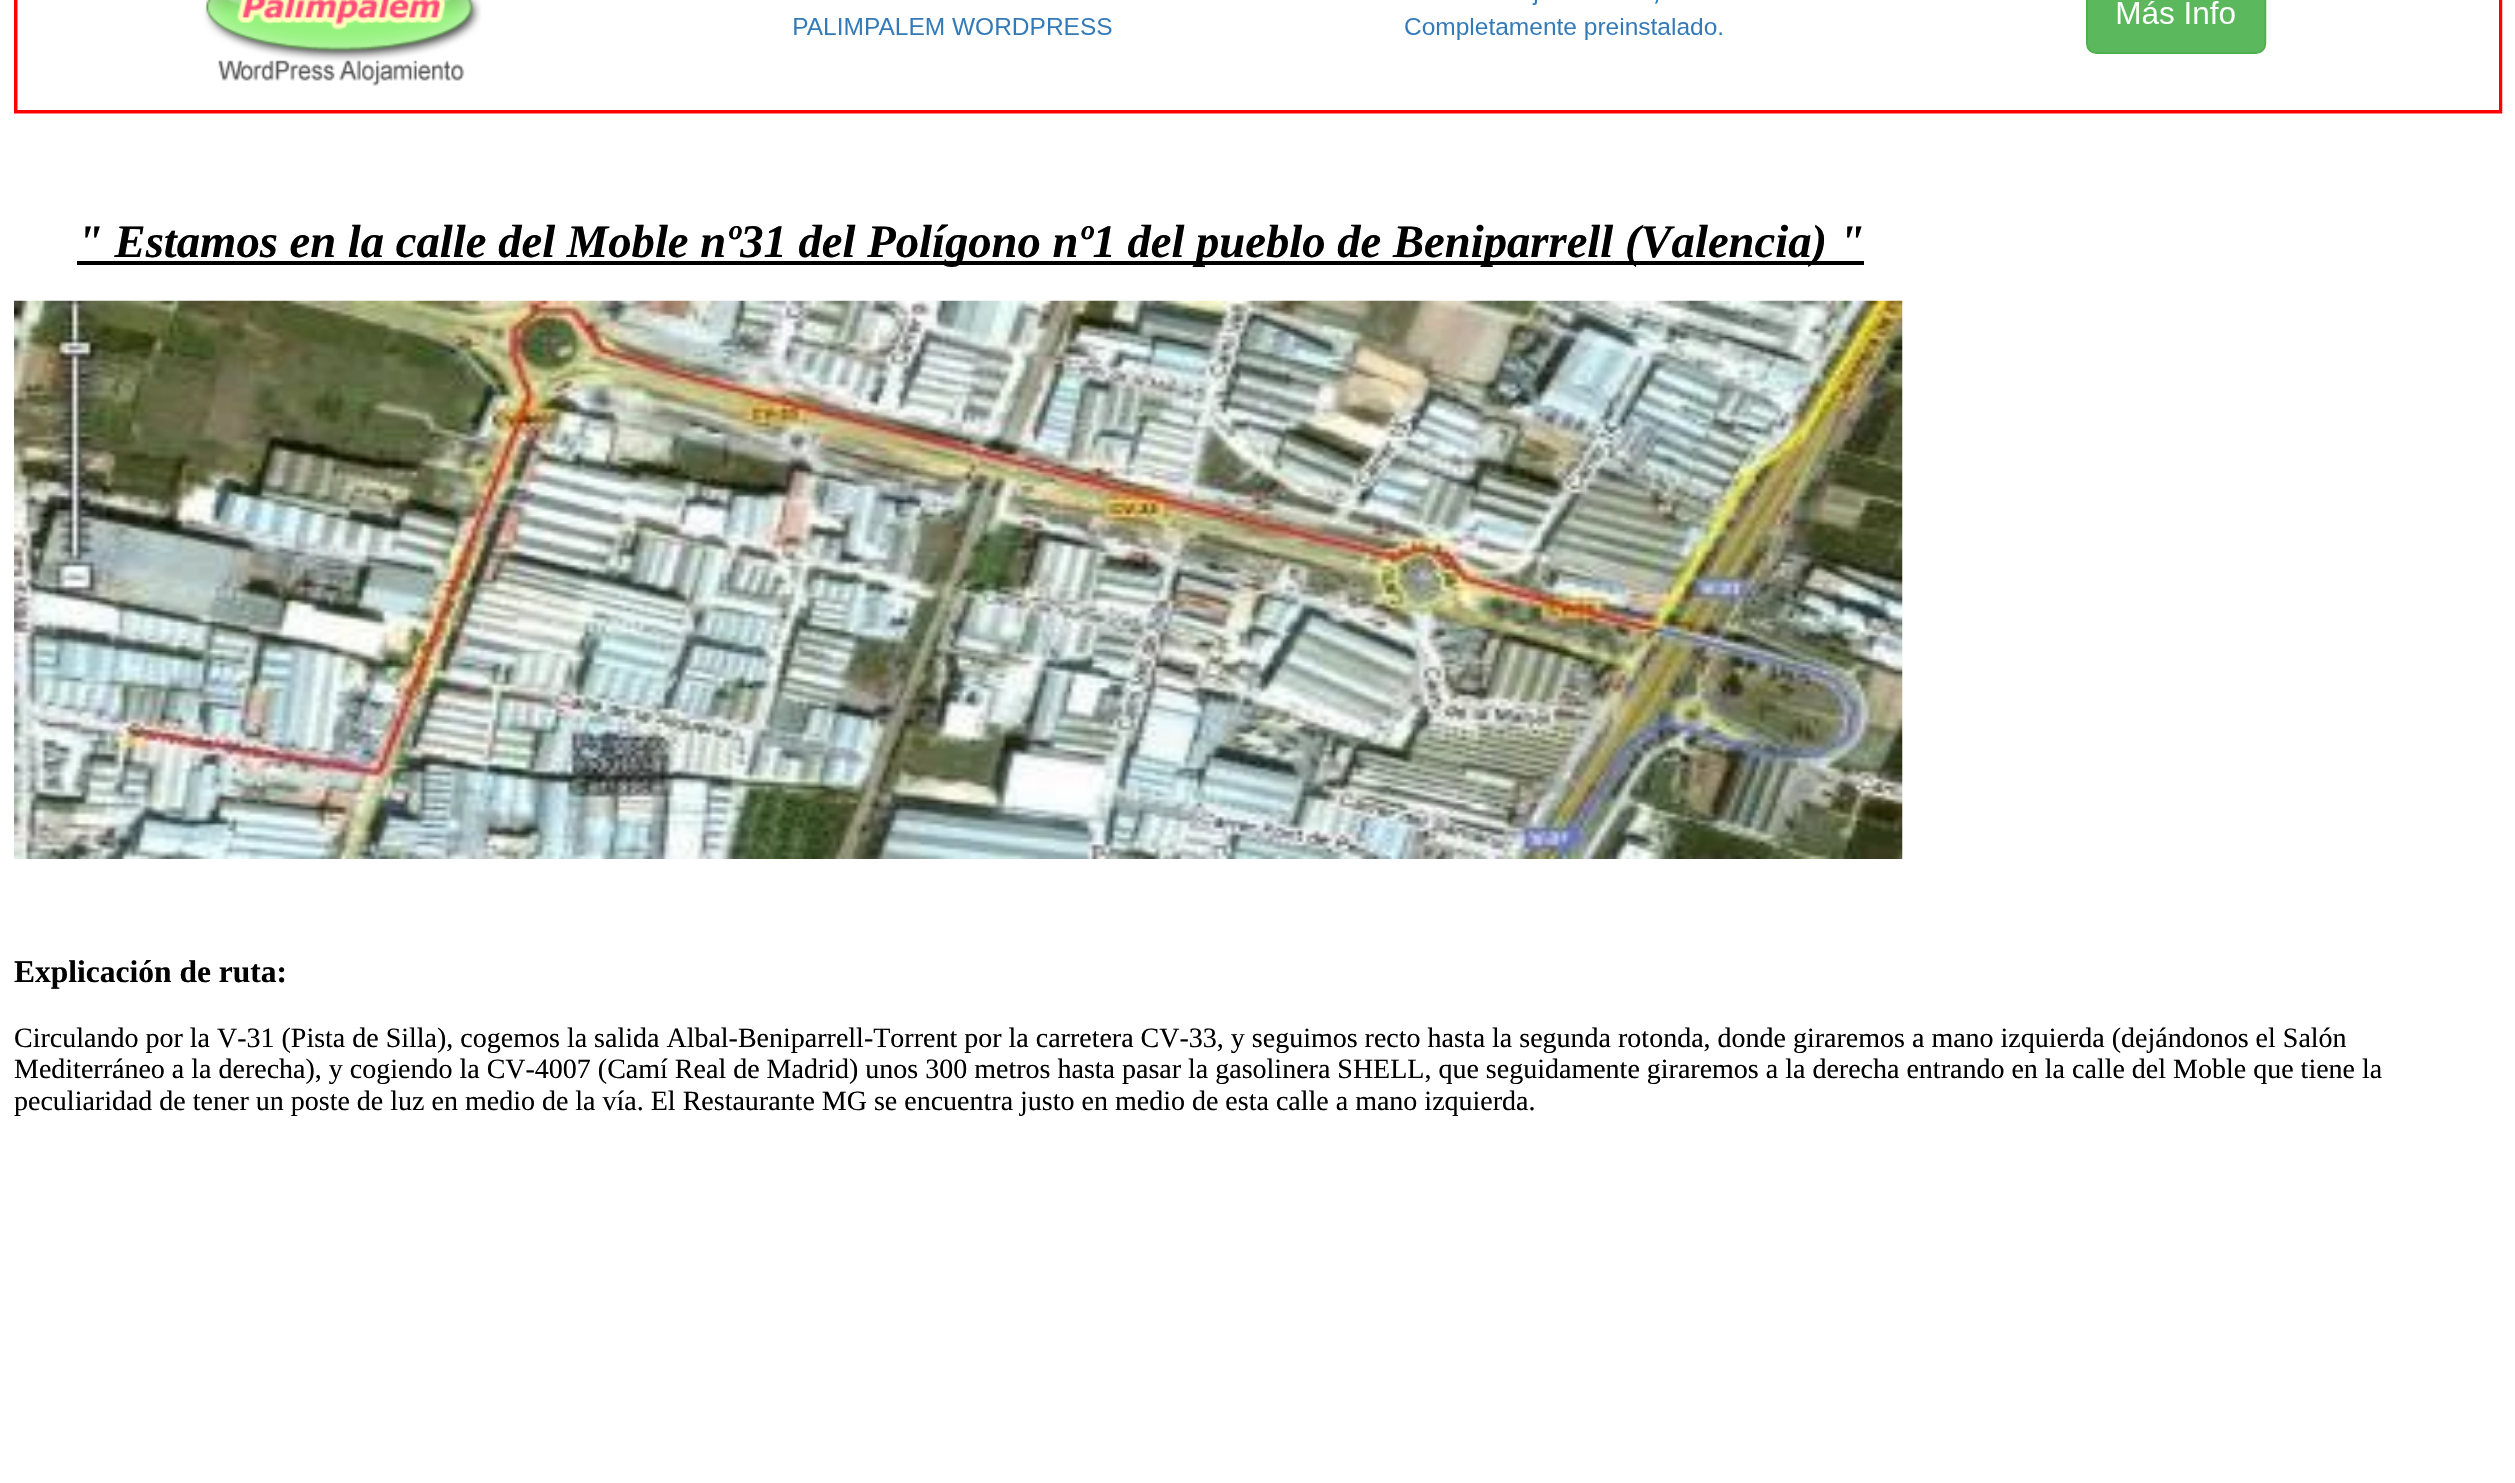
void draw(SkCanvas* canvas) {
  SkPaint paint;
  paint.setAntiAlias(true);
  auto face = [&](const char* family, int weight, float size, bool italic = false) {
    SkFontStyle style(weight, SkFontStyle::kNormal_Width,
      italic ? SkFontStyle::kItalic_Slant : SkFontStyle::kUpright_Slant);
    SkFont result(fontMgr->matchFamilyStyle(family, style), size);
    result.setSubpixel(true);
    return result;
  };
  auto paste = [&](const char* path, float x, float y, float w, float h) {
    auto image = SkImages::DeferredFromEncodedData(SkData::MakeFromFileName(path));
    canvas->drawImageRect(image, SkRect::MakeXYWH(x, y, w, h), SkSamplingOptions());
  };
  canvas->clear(0xffffffff);
  paste("img/1.png", 14, 0, 2489, 114);
  paint.setColor(0xff000000);
  canvas->drawRect(SkRect::MakeXYWH(77, 261, 1787, 4), paint);
  paste("img/2.png", 14, 300, 1889, 559);
  auto f0 = face("Liberation Serif", 700, 46.65f, true);
  canvas->drawString("\" Estamos en la calle del Moble nº31 del Polígono nº1 del pueblo de Beniparrell (Valencia) \"", 77, 257, f0, paint);
  auto f1 = face("Liberation Serif", 700, 31.5f);
  canvas->drawString("Explicación de ruta:", 14, 982, f1, paint);
  auto f2 = face("Liberation Serif", 400, 28);
  {
    const struct { const char* s; float x, y; } items[] = {
      {"Circulando por la V-31 (Pista de Silla), cogemos la salida Albal-Beniparrell-Torrent por la carretera CV-33, y seguimos recto hasta la segunda rotonda, donde giraremos a mano izquierda (dejándonos el Salón", 14, 1047},
      {"Mediterráneo a la derecha), y cogiendo la CV-4007 (Camí Real de Madrid) unos 300 metros hasta pasar la gasolinera SHELL, que seguidamente giraremos a la derecha entrando en la calle del Moble que tiene la", 14, 1078},
      {"peculiaridad de tener un poste de luz en medio de la vía. El Restaurante MG se encuentra justo en medio de esta calle a mano izquierda.", 14, 1110},
    };
    for (auto [s, x, y] : items) {
      canvas->drawString(s, x, y, f2, paint);
    }
  }
}
